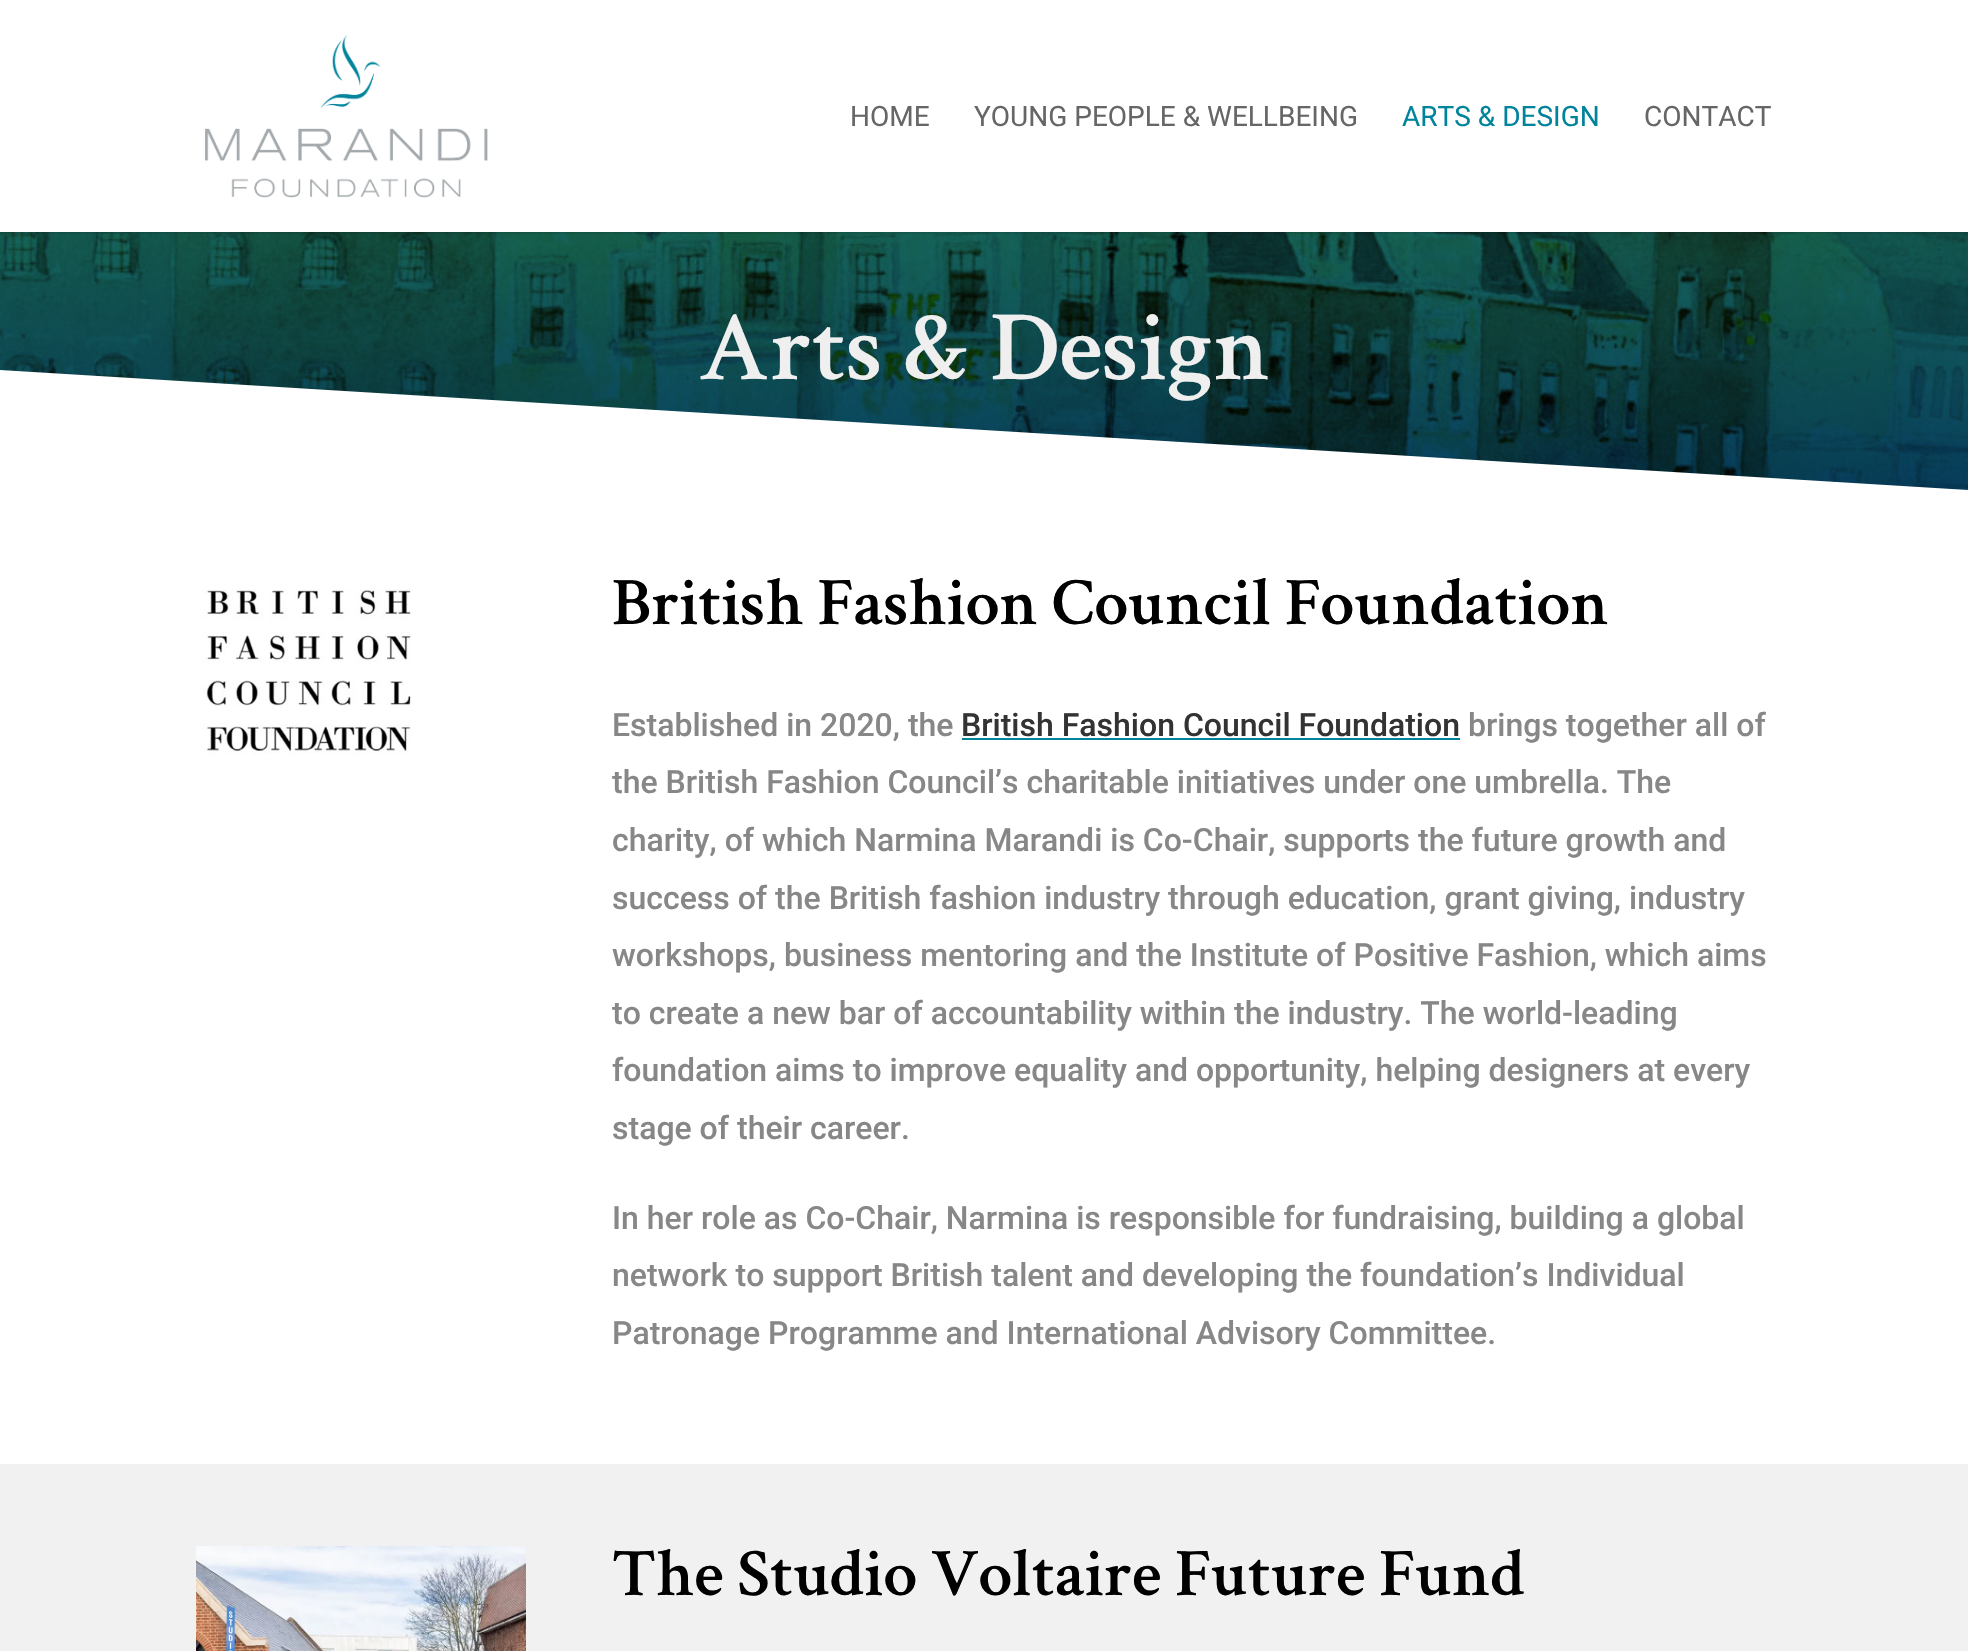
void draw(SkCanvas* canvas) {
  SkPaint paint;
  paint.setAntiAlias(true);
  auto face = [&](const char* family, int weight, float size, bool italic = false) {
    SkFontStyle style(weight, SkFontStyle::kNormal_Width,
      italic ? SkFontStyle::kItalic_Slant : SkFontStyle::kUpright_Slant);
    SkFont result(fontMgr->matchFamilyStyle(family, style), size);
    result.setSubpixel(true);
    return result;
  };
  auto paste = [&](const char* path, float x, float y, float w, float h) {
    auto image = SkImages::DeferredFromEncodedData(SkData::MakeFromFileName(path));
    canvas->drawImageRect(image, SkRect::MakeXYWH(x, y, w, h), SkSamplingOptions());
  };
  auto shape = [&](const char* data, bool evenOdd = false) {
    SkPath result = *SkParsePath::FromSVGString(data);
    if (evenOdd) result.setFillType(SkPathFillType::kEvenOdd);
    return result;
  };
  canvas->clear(0xffffffff);
  paste("img/2.png", 0, 232, 1968, 258);
  paint.setColor(0x1a000000);
  canvas->drawRect(SkRect::MakeXYWH(0, 232, 1968, 2), paint);
  paste("img/1.png", 205, 35, 283, 163);
  paint.setColor(0xffffffff);
  canvas->drawPath(shape("M0 370V490H1968Z"), paint);
  paste("img/3.png", 202, 589, 209, 166);
  paint.setColor(0xff00849b);
  canvas->drawRect(SkRect::MakeXYWH(962, 738, 498, 2), paint);
  paint.setColor(0xfff1f1f1);
  canvas->drawRect(SkRect::MakeXYWH(0, 1464, 1968, 187), paint);
  paste("img/4.png", 196, 1546, 330, 105);
  auto f0 = face("Roboto", 400, 28);
  paint.setColor(0xff666666);
  canvas->drawString("HOME", 850, 126, f0, paint);
  canvas->drawString("YOUNG PEOPLE & WELLBEING", 974, 126, f0, paint);
  paint.setColor(0xff00849b);
  canvas->drawString("ARTS & DESIGN", 1402, 126, f0, paint);
  paint.setColor(0xff666666);
  canvas->drawString("CONTACT", 1644, 126, f0, paint);
  auto f1 = face("Crimson Text", 600, 100);
  paint.setColor(0xffefefef);
  canvas->drawString("Arts & Design", 698, 379, f1, paint);
  auto f2 = face("Crimson Text", 600, 68);
  paint.setColor(0xff000000);
  canvas->drawString("British Fashion Council Foundation", 612, 624, f2, paint);
  auto f3 = face("Roboto", 500, 32);
  paint.setColor(0xff878787);
  canvas->drawString("Established in 2020, the", 612, 736, f3, paint);
  paint.setColor(0xff333333);
  canvas->drawString("British Fashion Council Foundation", 961, 736, f3, paint);
  paint.setColor(0xff878787);
  {
    const struct { const char* s; float x, y; } items[] = {
      {"brings together all of", 1468, 736},
      {"the British Fashion Council’s charitable initiatives under one umbrella. The", 612, 793},
      {"charity, of which Narmina Marandi is Co-Chair, supports the future growth and", 612, 851},
      {"success of the British fashion industry through education, grant giving, industry", 612, 909},
      {"workshops, business mentoring and the Institute of Positive Fashion, which aims", 612, 966},
      {"to create a new bar of accountability within the industry. The world-leading", 612, 1024},
      {"foundation aims to improve equality and opportunity, helping designers at every", 612, 1081},
      {"stage of their career.", 612, 1139},
      {"In her role as Co-Chair, Narmina is responsible for fundraising, building a global", 612, 1229},
      {"network to support British talent and developing the foundation’s Individual", 612, 1286},
      {"Patronage Programme and International Advisory Committee.", 612, 1344},
    };
    for (auto [s, x, y] : items) {
      canvas->drawString(s, x, y, f3, paint);
    }
  }
  paint.setColor(0xff000000);
  canvas->drawString("The Studio Voltaire Future Fund", 612, 1595, f2, paint);
}
